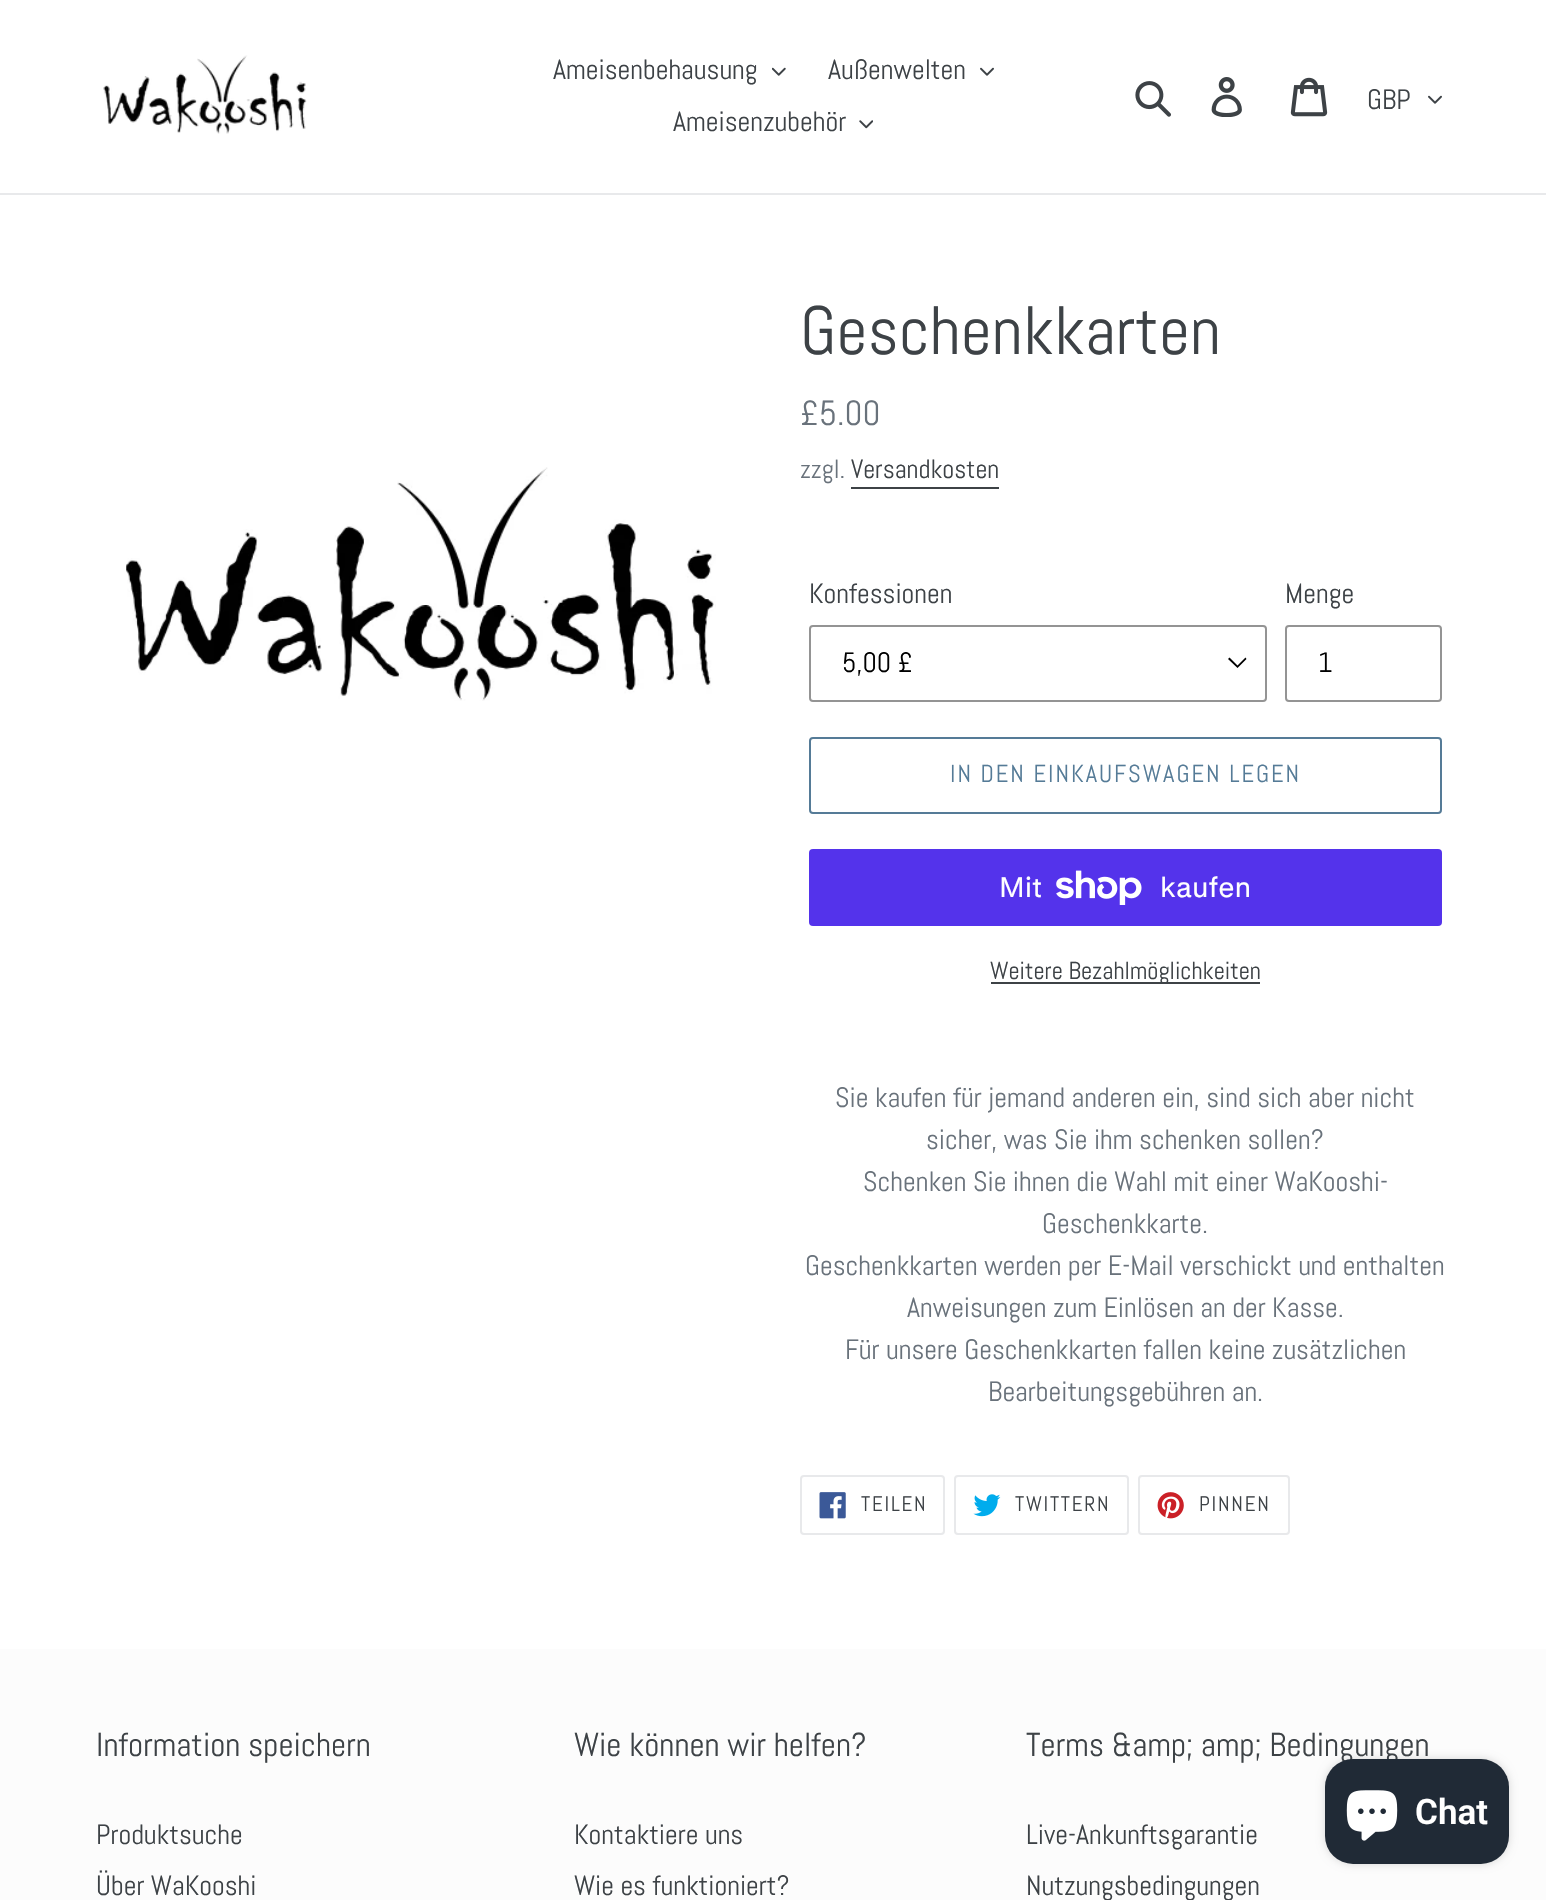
void draw(SkCanvas* canvas) {
  SkPaint paint;
  paint.setAntiAlias(true);
  auto face = [&](const char* family, int weight, float size, bool italic = false) {
    SkFontStyle style(weight, SkFontStyle::kNormal_Width,
      italic ? SkFontStyle::kItalic_Slant : SkFontStyle::kUpright_Slant);
    SkFont result(fontMgr->matchFamilyStyle(family, style), size);
    result.setSubpixel(true);
    return result;
  };
  auto writeSpaced = [&](const char* s, float x, float y, const SkFont& font, const SkPaint& ink, float letter, float word) {
    std::vector<SkGlyphID> glyphs(font.countText(s, strlen(s), SkTextEncoding::kUTF8));
    std::vector<float> xs(glyphs.size());
    font.textToGlyphs(s, strlen(s), SkTextEncoding::kUTF8, glyphs);
    font.getXPos(glyphs, xs, x);
    float extra = 0;
    for (size_t i = 0; i < glyphs.size(); i++) {
      xs[i] += extra;
      extra += letter + word * (glyphs[i] == font.unicharToGlyph(' '));
    }
    canvas->drawTextBlob(SkTextBlob::MakeFromPosHGlyphs(glyphs, xs, y, font), 0, 0, ink);
  };
  auto paste = [&](const char* path, float x, float y, float w, float h) {
    auto image = SkImages::DeferredFromEncodedData(SkData::MakeFromFileName(path));
    canvas->drawImageRect(image, SkRect::MakeXYWH(x, y, w, h), SkSamplingOptions());
  };
  auto shape = [&](const char* data, bool evenOdd = false) {
    SkPath result = *SkParsePath::FromSVGString(data);
    if (evenOdd) result.setFillType(SkPathFillType::kEvenOdd);
    return result;
  };
  canvas->clear(0xffffffff);
  paint.setColor(0xffe8e9eb);
  canvas->drawRect(SkRect::MakeXYWH(0, 193, 1546, 2), paint);
  paste("img/1.png", 103, 55, 204, 79);
  paste("img/2.png", 772, 67, 14, 9);
  paste("img/3.png", 980, 67, 14, 9);
  paste("img/4.png", 859, 120, 14, 9);
  paste("img/5.png", 1135, 81, 36, 36);
  paste("img/6.png", 1211, 77, 31, 40);
  paste("img/7.png", 1290, 77, 38, 40);
  paste("img/3.png", 1428, 95, 14, 9);
  paste("img/8.png", 126, 467, 590, 234);
  paint.setColor(0xff3d4246);
  canvas->drawRect(SkRect::MakeXYWH(851, 487, 148, 2), paint);
  paint.setColor(0xff000000);
  canvas->drawPath(shape("M1237.5 668L1228 659L1229.5 657.5L1237.5 665.5L1245.5 657.5L1246.5 659Z"), paint);
  paint.setStroke(true);
  paint.setStrokeWidth(2);
  paint.setColor(0xff949494);
  canvas->drawRoundRect(SkRect::MakeXYWH(810, 626, 456, 75), 3, 3, paint);
  canvas->drawRoundRect(SkRect::MakeXYWH(1286, 626, 155, 75), 3, 3, paint);
  paint.setColor(0xff557b97);
  canvas->drawRoundRect(SkRect::MakeXYWH(810, 738, 631, 75), 3, 3, paint);
  paint.setStroke(false);
  paint.setColor(0xff5433eb);
  canvas->drawRoundRect(SkRect::MakeXYWH(809, 849, 633, 77), 4, 4, paint);
  paste("img/9.png", 1056, 870, 86, 35);
  paint.setColor(0xff3d4246);
  canvas->drawRect(SkRect::MakeXYWH(991, 982, 269, 2), paint);
  paint.setStroke(true);
  paint.setColor(0xffe8e9eb);
  canvas->drawRoundRect(SkRect::MakeXYWH(801, 1476, 143, 58), 3, 3, paint);
  paste("img/10.png", 819, 1492, 27, 27);
  canvas->drawRoundRect(SkRect::MakeXYWH(955, 1476, 173, 58), 3, 3, paint);
  paste("img/11.png", 973, 1494, 28, 23);
  canvas->drawRoundRect(SkRect::MakeXYWH(1139, 1476, 150, 58), 3, 3, paint);
  paste("img/12.png", 1157, 1492, 27, 27);
  paint.setStroke(false);
  paint.setColor(0xfffcfcfc);
  canvas->drawRect(SkRect::MakeXYWH(0, 1649, 1546, 251), paint);
  paint.setColor(0x26000000);
  paint.setMaskFilter(SkMaskFilter::MakeBlur(kNormal_SkBlurStyle, 4.5f));
  canvas->drawRoundRect(SkRect::MakeXYWH(1325, 1759, 184, 105), 28, 28, paint);
  paint.setMaskFilter(nullptr);
  auto f0 = face("Abel", 400, 28);
  paint.setColor(0xff3d4246);
  {
    const struct { const char* s; float x, y; } items[] = {
      {"Ameisenbehausung", 553, 79},
      {"Außenwelten", 828, 79},
      {"Ameisenzubehör", 673, 131},
      {"GBP", 1367, 109},
    };
    for (auto [s, x, y] : items) {
      canvas->drawString(s, x, y, f0, paint);
    }
  }
  auto f1 = face("Abel", 400, 68.25f);
  canvas->drawString("Geschenkkarten", 800, 354, f1, paint);
  auto f2 = face("Abel", 400, 35);
  paint.setColor(0xff69727b);
  canvas->drawString("£5.00", 800, 425, f2, paint);
  auto f3 = face("Abel", 400, 26.25f);
  canvas->drawString("zzgl.", 800, 478, f3, paint);
  paint.setColor(0xff3d4246);
  canvas->drawString("Versandkosten", 851, 478, f3, paint);
  canvas->drawString("Konfessionen", 809, 603, f0, paint);
  paint.setColor(0xff000000);
  canvas->drawString("5,00 £", 842, 672, f0, paint);
  paint.setColor(0xff3d4246);
  canvas->drawString("Menge", 1285, 603, f0, paint);
  paint.setColor(0xff000000);
  canvas->drawString("1", 1318, 672, f0, paint);
  auto f4 = face("Abel", 400, 24.5f);
  paint.setColor(0xff557b97);
  writeSpaced("IN DEN EINKAUFSWAGEN LEGEN", 950, 782, f4, paint, 1.95f, 0);
  auto f5 = face("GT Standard", 400, 28);
  paint.setColor(0xffffffff);
  canvas->drawString("Mit", 999, 897, f5, paint);
  canvas->drawString("kaufen", 1160, 897, f5, paint);
  paint.setColor(0xff3d4246);
  canvas->drawString("Weitere Bezahlmöglichkeiten", 990, 979, f4, paint);
  paint.setColor(0xff69727b);
  {
    const struct { const char* s; float x, y; } items[] = {
      {"Sie kaufen für jemand anderen ein, sind sich aber nicht", 835, 1107},
      {"sicher, was Sie ihm schenken sollen?", 926, 1149},
      {"Schenken Sie ihnen die Wahl mit einer WaKooshi-", 863, 1191},
      {"Geschenkkarte.", 1042, 1233},
      {"Geschenkkarten werden per E-Mail verschickt und enthalten", 805, 1275},
      {"Anweisungen zum Einlösen an der Kasse.", 907, 1317},
      {"Für unsere Geschenkkarten fallen keine zusätzlichen", 845, 1359},
      {"Bearbeitungsgebühren an.", 988, 1401},
    };
    for (auto [s, x, y] : items) {
      canvas->drawString(s, x, y, f0, paint);
    }
  }
  auto f6 = face("Abel", 400, 21);
  paint.setColor(0xff3d4246);
  {
    const struct { const char* s; float x, y; } items[] = {
      {"TEILEN", 861, 1511},
      {"TWITTERN", 1015, 1511},
      {"PINNEN", 1199, 1511},
    };
    for (auto [s, x, y] : items) {
      writeSpaced(s, x, y, f6, paint, 1.75f, 0);
    }
  }
  auto f7 = face("Abel", 400, 33.25f);
  canvas->drawString("Information speichern", 96, 1756, f7, paint);
  canvas->drawString("Produktsuche", 96, 1844, f0, paint);
  canvas->drawString("Über WaKooshi", 96, 1895, f0, paint);
  canvas->drawString("Wie können wir helfen?", 574, 1756, f7, paint);
  canvas->drawString("Kontaktiere uns", 574, 1844, f0, paint);
  canvas->drawString("Wie es funktioniert?", 574, 1895, f0, paint);
  canvas->drawString("Terms &amp; amp; Bedingungen", 1026, 1756, f7, paint);
  canvas->drawString("Live-Ankunftsgarantie", 1026, 1844, f0, paint);
  canvas->drawString("Nutzungsbedingungen", 1026, 1895, f0, paint);
  paint.setColor(0xff202a36);
  canvas->drawRoundRect(SkRect::MakeXYWH(1325, 1759, 184, 105), 28, 28, paint);
  paste("img/13.png", 1346, 1790, 52, 51);
  auto f8 = face("Roboto", 600, 35);
  paint.setColor(0xffffffff);
  canvas->drawString("Chat", 1415, 1824, f8, paint);
}
